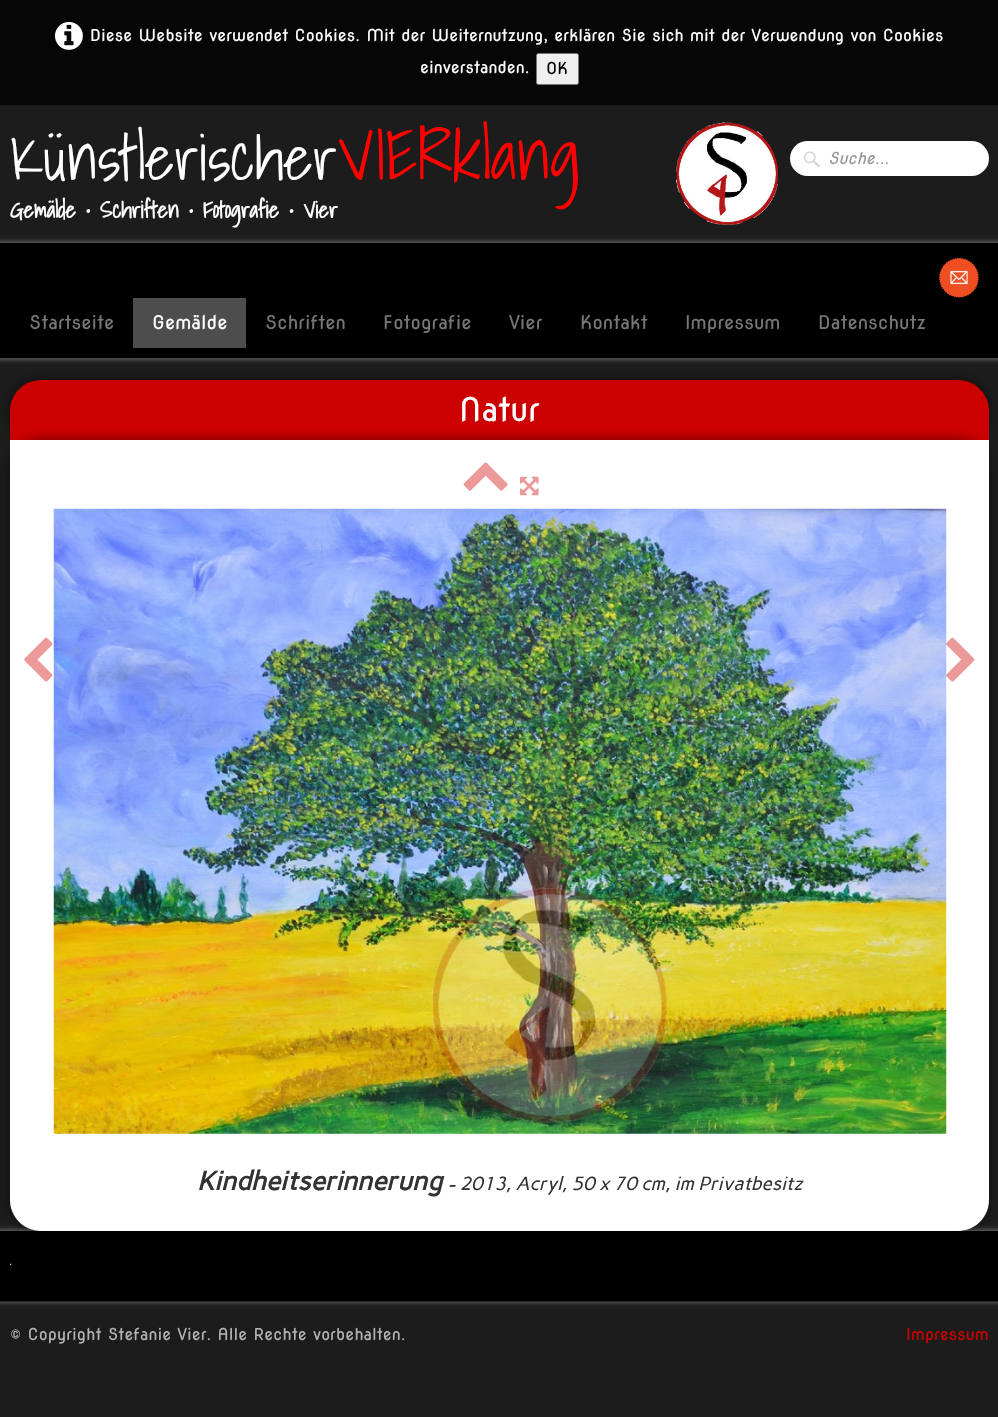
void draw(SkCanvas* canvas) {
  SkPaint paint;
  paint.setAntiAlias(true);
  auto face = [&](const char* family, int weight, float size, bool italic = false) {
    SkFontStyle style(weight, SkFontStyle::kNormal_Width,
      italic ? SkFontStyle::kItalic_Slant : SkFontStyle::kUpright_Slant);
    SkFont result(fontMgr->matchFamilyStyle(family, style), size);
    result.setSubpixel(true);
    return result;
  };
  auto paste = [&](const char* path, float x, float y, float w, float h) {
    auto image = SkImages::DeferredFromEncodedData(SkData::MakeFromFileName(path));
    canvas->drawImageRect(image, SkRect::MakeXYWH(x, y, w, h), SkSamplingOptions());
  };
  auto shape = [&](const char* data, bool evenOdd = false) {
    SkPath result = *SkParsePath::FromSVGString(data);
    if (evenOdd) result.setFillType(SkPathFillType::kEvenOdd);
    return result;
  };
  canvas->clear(0xff1c1c1c);
  paint.setColor(0xff060606);
  canvas->drawRect(SkRect::MakeXYWH(0, 0, 998, 105), paint);
  paste("img/1.png", 55, 22, 28, 28);
  paint.setColor(0xffefefef);
  canvas->drawRoundRect(SkRect::MakeXYWH(536.5f, 53.5f, 42, 31), 2, 2, paint);
  paint.setStroke(true);
  paint.setStrokeWidth(1);
  paint.setColor(0xff767676);
  canvas->drawRoundRect(SkRect::MakeXYWH(536.5f, 53.5f, 42, 31), 2, 2, paint);
  paste("img/2.png", 676, 122, 102, 103);
  paint.setStroke(false);
  paint.setColor(0xffffffff);
  canvas->drawRoundRect(SkRect::MakeXYWH(790, 141, 199, 35), 17.5f, 17.5f, paint);
  paste("img/3.png", 804, 151, 16, 17);
  paint.setColor(0x80ffffff);
  paint.setMaskFilter(SkMaskFilter::MakeBlur(kNormal_SkBlurStyle, 3));
  canvas->drawRoundRect(SkRect::MakeXYWH(-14, 243, 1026, 115), 5, 5, paint);
  paint.setMaskFilter(nullptr);
  paint.setColor(0xff000000);
  canvas->drawRect(SkRect::MakeXYWH(0, 243, 998, 115), paint);
  paste("img/4.png", 938, 257, 41, 41);
  paint.setColor(0xff4d4d4d);
  canvas->drawRect(SkRect::MakeXYWH(133, 298, 113, 50), paint);
  paint.setColor(0x80000000);
  paint.setMaskFilter(SkMaskFilter::MakeBlur(kNormal_SkBlurStyle, 6));
  canvas->drawRoundRect(SkRect::MakeXYWH(10, 380, 979, 60), 31, 31, paint);
  paint.setMaskFilter(nullptr);
  paint.setColor(0xffcc0000);
  canvas->drawPath(shape("M41 380H958C975 380 989 394 989 411V440H10V411C10 394 24 380 41 380Z"), paint);
  paint.setColor(0x80000000);
  paint.setMaskFilter(SkMaskFilter::MakeBlur(kNormal_SkBlurStyle, 6));
  canvas->drawRoundRect(SkRect::MakeXYWH(10, 440, 979, 791), 31, 31, paint);
  paint.setMaskFilter(nullptr);
  paint.setColor(0xffffffff);
  canvas->drawPath(shape("M10 440H989V1200C989 1217 975 1231 958 1231H41C24 1231 10 1217 10 1200Z"), paint);
  paste("img/5.png", 463, 462, 45, 29);
  paste("img/6.png", 520, 476, 19, 20);
  paste("img/7.png", 24, 637, 29, 45);
  paste("img/8.png", 53, 508, 894, 626);
  paste("img/9.png", 946, 637, 29, 45);
  paint.setColor(0x80ffffff);
  paint.setMaskFilter(SkMaskFilter::MakeBlur(kNormal_SkBlurStyle, 3));
  canvas->drawRect(SkRect::MakeXYWH(-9, 1231, 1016, 70), paint);
  paint.setMaskFilter(nullptr);
  paint.setColor(0xff000000);
  canvas->drawRect(SkRect::MakeXYWH(0, 1231, 998, 70), paint);
  paste("img/10.png", 10, 1263, 2, 2);
  paint.setColor(0xff292929);
  canvas->drawRect(SkRect::MakeXYWH(0, 1301, 998, 1), paint);
  auto f0 = face("Nova Round", 400, 16.25f);
  paint.setColor(0xffffffff);
  canvas->drawString("Diese Website verwendet Cookies. Mit der Weiternutzung, erklären Sie sich mit der Verwendung von Cookies", 90, 41, f0, paint);
  canvas->drawString("einverstanden.", 420, 73, f0, paint);
  paint.setColor(0xff000000);
  canvas->drawString("OK", 546, 74, f0, paint);
  auto f1 = face("Shadows Into Light", 300, 62.5f);
  paint.setColor(0xffffffff);
  canvas->drawString("Künstlerischer", 10, 180, f1, paint);
  auto f2 = face("Shadows Into Light", 300, 69);
  paint.setColor(0xffff0000);
  canvas->drawString("VIERklang", 338, 180, f2, paint);
  auto f3 = face("Shadows Into Light", 700, 22.5f);
  paint.setColor(0xffffffff);
  canvas->drawString("Gemälde • Schriften • Fotografie • Vier", 10, 218, f3, paint);
  auto f4 = face("Nova Round", 400, 16.25f, true);
  paint.setColor(0xff999999);
  canvas->drawString("Suche...", 828, 164, f4, paint);
  auto f5 = face("Nova Round", 400, 18.75f);
  paint.setColor(0xff777777);
  canvas->drawString("Startseite", 29, 329, f5, paint);
  paint.setColor(0xffffffff);
  canvas->drawString("Gemälde", 152, 329, f5, paint);
  paint.setColor(0xff777777);
  {
    const struct { const char* s; float x, y; } items[] = {
      {"Schriften", 265, 329},
      {"Fotografie", 383, 329},
      {"Vier", 509, 329},
      {"Kontakt", 580, 329},
      {"Impressum", 685, 329},
      {"Datenschutz", 818, 329},
    };
    for (auto [s, x, y] : items) {
      canvas->drawString(s, x, y, f5, paint);
    }
  }
  auto f6 = face("Nova Round", 400, 32.5f);
  paint.setColor(0xffffffff);
  canvas->drawString("Natur", 459, 421, f6, paint);
  auto f7 = face("Carme", 700, 26.25f, true);
  paint.setColor(0xff333333);
  canvas->drawString("Kindheitserinnerung", 197, 1190, f7, paint);
  auto f8 = face("Carme", 400, 18.75f, true);
  canvas->drawString("- 2013, Acryl, 50 x 70 cm, im Privatbesitz", 448, 1190, f8, paint);
  paint.setColor(0xffb3b3b3);
  canvas->drawString("© Copyright Stefanie Vier. Alle Rechte vorbehalten.", 10, 1340, f0, paint);
  paint.setColor(0xffcc0000);
  canvas->drawString("Impressum", 906, 1340, f0, paint);
}
